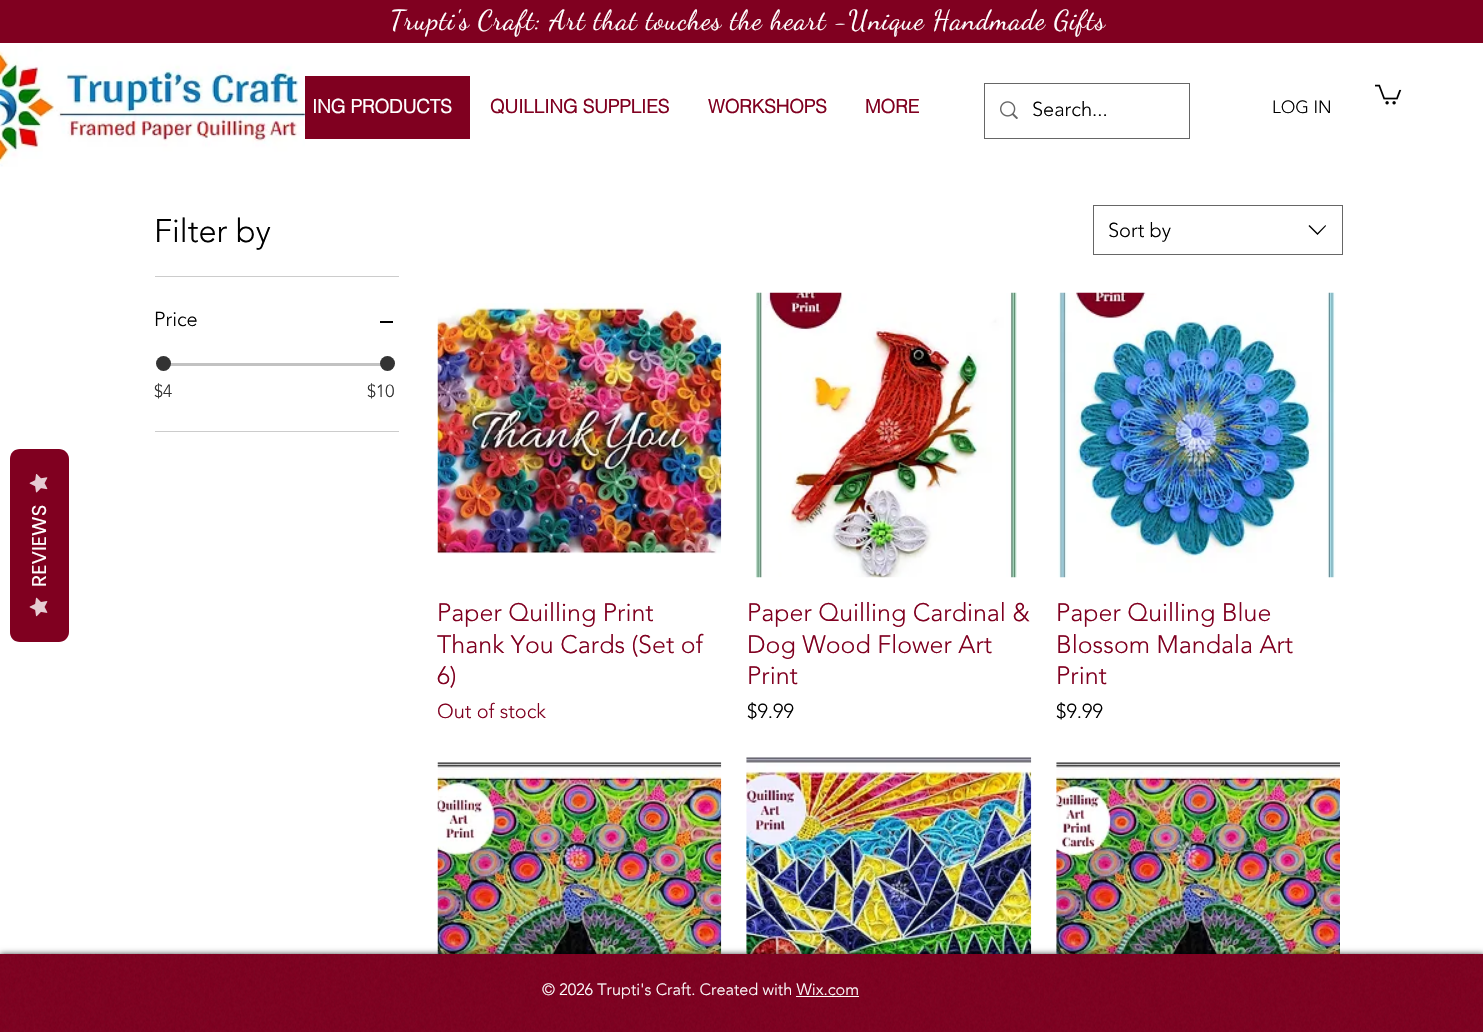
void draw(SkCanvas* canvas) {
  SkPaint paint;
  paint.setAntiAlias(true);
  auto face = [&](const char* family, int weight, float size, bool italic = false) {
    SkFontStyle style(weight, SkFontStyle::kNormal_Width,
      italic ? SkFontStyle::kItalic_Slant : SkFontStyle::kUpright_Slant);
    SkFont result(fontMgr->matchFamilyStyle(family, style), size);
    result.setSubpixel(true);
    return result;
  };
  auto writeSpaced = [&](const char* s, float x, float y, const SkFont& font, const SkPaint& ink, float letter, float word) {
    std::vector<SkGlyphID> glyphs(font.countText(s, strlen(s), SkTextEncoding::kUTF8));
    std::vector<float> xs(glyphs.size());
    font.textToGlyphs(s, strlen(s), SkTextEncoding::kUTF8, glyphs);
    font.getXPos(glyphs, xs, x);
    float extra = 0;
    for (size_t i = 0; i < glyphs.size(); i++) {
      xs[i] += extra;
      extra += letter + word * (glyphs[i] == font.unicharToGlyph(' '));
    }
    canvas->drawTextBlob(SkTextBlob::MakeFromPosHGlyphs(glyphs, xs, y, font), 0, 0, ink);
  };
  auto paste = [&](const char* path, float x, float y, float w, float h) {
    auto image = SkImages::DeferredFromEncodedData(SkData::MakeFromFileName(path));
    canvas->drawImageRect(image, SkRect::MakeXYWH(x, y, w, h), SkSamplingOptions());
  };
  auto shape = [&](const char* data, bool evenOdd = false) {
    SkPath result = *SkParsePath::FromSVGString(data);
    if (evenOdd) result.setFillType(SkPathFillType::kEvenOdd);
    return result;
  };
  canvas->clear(0xffffffff);
  paint.setColor(0xff800020);
  canvas->drawPath(shape("M10 632V459C10 453 14 449 20 449H59C64 449 69 453 69 459V632C69 638 64 642 59 642H20C14 642 10 638 10 632Z"), paint);
  paste("img/1.png", 29, 474, 19, 19);
  paste("img/2.png", 29, 597, 19, 20);
  canvas->drawRect(SkRect::MakeXYWH(0, 0, 1483, 43), paint);
  paste("img/3.png", 0, 46, 305, 121);
  paste("img/4.png", 1375, 84, 27, 21);
  canvas->drawRect(SkRect::MakeXYWH(305, 76, 165, 63), paint);
  paint.setStroke(true);
  paint.setStrokeWidth(1);
  paint.setColor(0xff666666);
  canvas->drawRect(SkRect::MakeXYWH(984.5f, 83.5f, 205, 55), paint);
  paste("img/5.png", 1000, 101, 18, 18);
  paint.setStroke(false);
  {
    const struct { float x, y, w, h; SkColor color; } items[] = {
      {155, 276, 244, 1, 0xffcccccc},
      {155, 431, 244, 1, 0xffcccccc},
      {380, 321, 13, 2, 0xff000000},
      {163, 363, 223, 3, 0xffc2c2c2},
    };
    for (auto [x, y, w, h, color] : items) {
      paint.setColor(color);
      canvas->drawRect(SkRect::MakeXYWH(x, y, w, h), paint);
    }
  }
  paint.setColor(0xff333333);
  canvas->drawCircle(163.5f, 363.5f, 7.5f, paint);
  canvas->drawCircle(387.5f, 363.5f, 7.5f, paint);
  paint.setStroke(true);
  paint.setColor(0xff666666);
  canvas->drawRect(SkRect::MakeXYWH(1093.5f, 205.5f, 249, 49), paint);
  paint.setStroke(false);
  paint.setColor(0xff000000);
  canvas->drawPath(shape("M1325.5 225L1326 226L1317.5 235L1308.5 226L1309.5 225L1317.5 233Z", true), paint);
  paste("img/6.png", 437, 303, 285, 251);
  paste("img/7.png", 755, 292, 262, 286);
  paste("img/8.png", 1058, 292, 278, 286);
  paste("img/9.png", 437, 762, 285, 192);
  paste("img/10.png", 746, 757, 286, 197);
  paste("img/11.png", 1056, 762, 284, 192);
  paint.setColor(0xb3000000);
  paint.setMaskFilter(SkMaskFilter::MakeBlur(kNormal_SkBlurStyle, 3));
  canvas->drawRect(SkRect::MakeXYWH(0, 954, 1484, 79), paint);
  paint.setMaskFilter(nullptr);
  paint.setColor(0xff800020);
  canvas->drawRect(SkRect::MakeXYWH(0, 954, 1483, 78), paint);
  paste("img/12.png", 0, 953, 1483, 79);
  paint.setColor(0xffffffff);
  canvas->drawRect(SkRect::MakeXYWH(796, 996, 63, 1), paint);
  auto f0 = face("Poppins", 400, 20);
  canvas->save();
  canvas->rotate(-90, 46, 587);
  canvas->drawString("REVIEWS", 46, 587, f0, paint);
  canvas->restore();
  auto f1 = face("Dancing Script", 400, 27.5f);
  writeSpaced("Trupti's Craft: Art that touches the heart -Unique Handmade Gifts", 390, 29, f1, paint, 0.83f, 0);
  auto f2 = face("helvetica", 700, 18.75f);
  canvas->drawString("ING PRODUCTS", 312, 113, f2, paint);
  paint.setColor(0xff800020);
  {
    const struct { const char* s; float x, y; } items[] = {
      {"QUILLING SUPPLIES", 490, 113},
      {"WORKSHOPS", 708, 113},
      {"MORE", 865, 113},
    };
    for (auto [s, x, y] : items) {
      canvas->drawString(s, x, y, f2, paint);
    }
  }
  auto f3 = face("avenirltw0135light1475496", 300, 20);
  paint.setColor(0xff000000);
  canvas->drawString("Search...", 1032, 116, f3, paint);
  auto f4 = face("avenirltw0135light1475496", 300, 17.5f);
  canvas->drawString("LOG IN", 1272, 113, f4, paint);
  auto f5 = face("avenirltw0135light1475496", 300, 32.5f);
  canvas->drawString("Filter by", 154, 242, f5, paint);
  canvas->drawString("Price", 154, 326, f3, paint);
  paint.setColor(0xff333333);
  canvas->drawString("$4", 154, 397, f4, paint);
  canvas->drawString("$10", 367, 397, f4, paint);
  paint.setColor(0xff000000);
  canvas->drawString("Sort by", 1108, 237, f3, paint);
  auto f6 = face("avenirltw0135light1475496", 300, 25);
  paint.setColor(0xff800020);
  {
    const struct { const char* s; float x, y; } items[] = {
      {"Paper Quilling Print", 437, 621},
      {"Thank You Cards (Set of", 437, 653},
      {"6)", 437, 684},
    };
    for (auto [s, x, y] : items) {
      canvas->drawString(s, x, y, f6, paint);
    }
  }
  canvas->drawString("Out of stock", 437, 718, f3, paint);
  {
    const struct { const char* s; float x, y; } items[] = {
      {"Paper Quilling Cardinal &", 747, 621},
      {"Dog Wood Flower Art", 747, 653},
      {"Print", 747, 684},
    };
    for (auto [s, x, y] : items) {
      canvas->drawString(s, x, y, f6, paint);
    }
  }
  paint.setColor(0xff000000);
  canvas->drawString("$9.99", 747, 718, f3, paint);
  paint.setColor(0xff800020);
  {
    const struct { const char* s; float x, y; } items[] = {
      {"Paper Quilling Blue", 1056, 621},
      {"Blossom Mandala Art", 1056, 653},
      {"Print", 1056, 684},
    };
    for (auto [s, x, y] : items) {
      canvas->drawString(s, x, y, f6, paint);
    }
  }
  paint.setColor(0xff000000);
  canvas->drawString("$9.99", 1056, 718, f3, paint);
  auto f7 = face("avenirltw0135light1475496", 300, 16.25f);
  paint.setColor(0xffffffff);
  canvas->drawString("© 2026 Trupti's Craft. Created with Wix.com", 542, 995, f7, paint);
}
